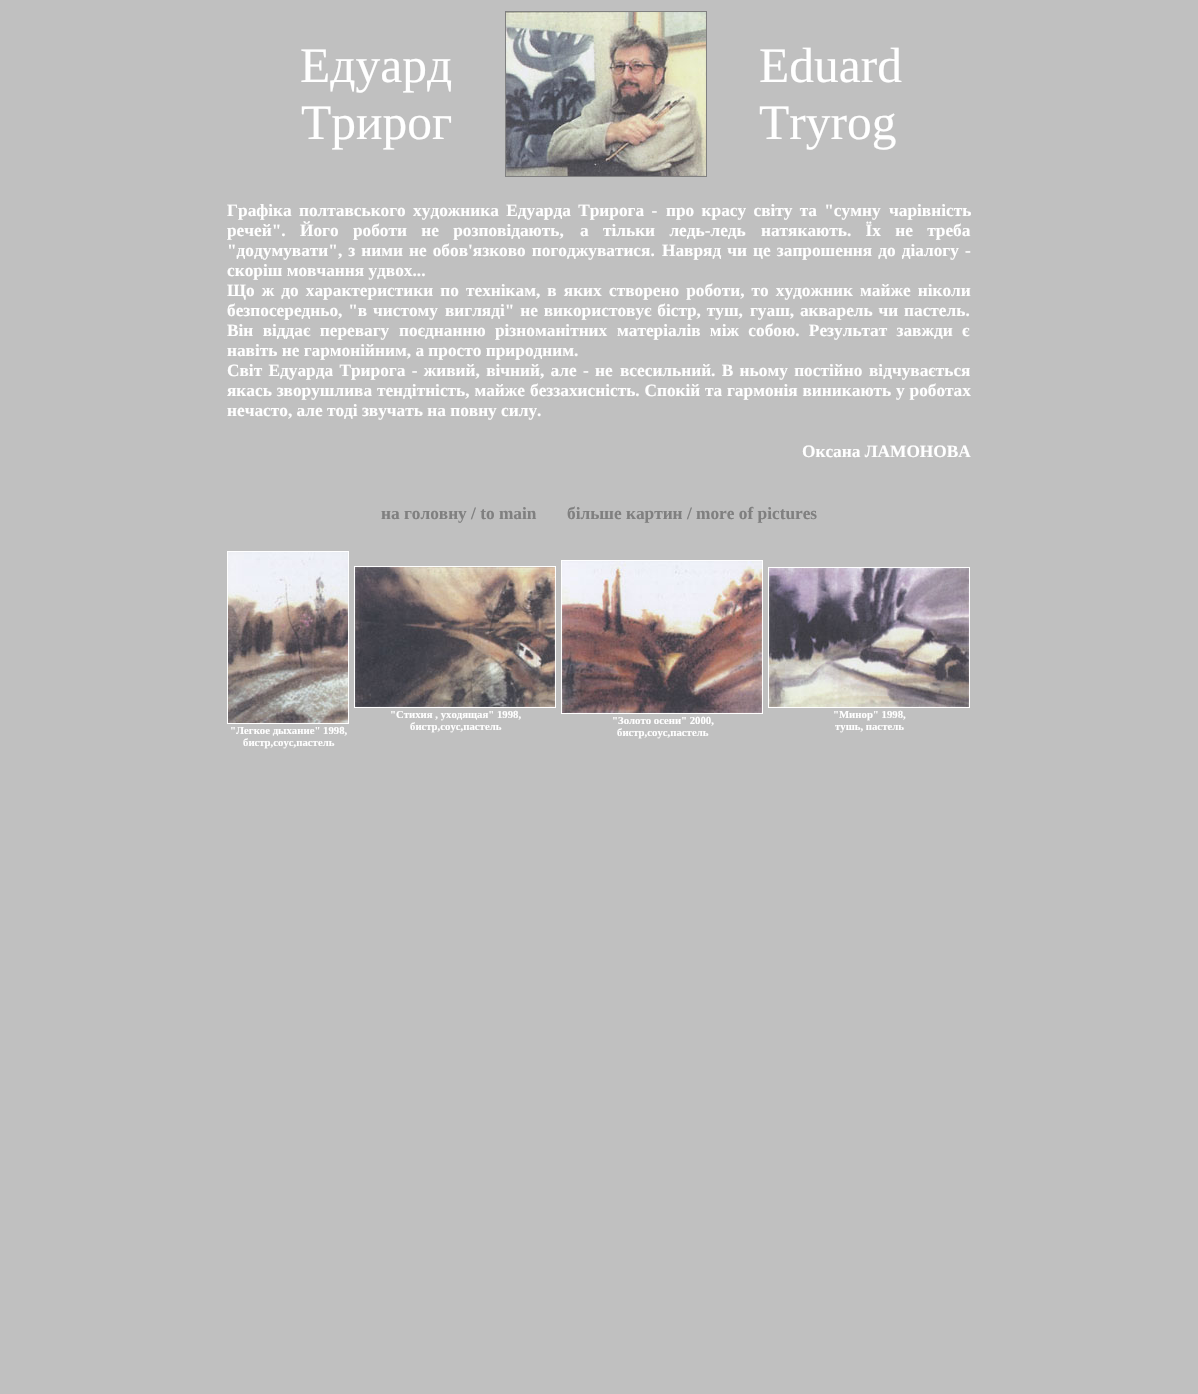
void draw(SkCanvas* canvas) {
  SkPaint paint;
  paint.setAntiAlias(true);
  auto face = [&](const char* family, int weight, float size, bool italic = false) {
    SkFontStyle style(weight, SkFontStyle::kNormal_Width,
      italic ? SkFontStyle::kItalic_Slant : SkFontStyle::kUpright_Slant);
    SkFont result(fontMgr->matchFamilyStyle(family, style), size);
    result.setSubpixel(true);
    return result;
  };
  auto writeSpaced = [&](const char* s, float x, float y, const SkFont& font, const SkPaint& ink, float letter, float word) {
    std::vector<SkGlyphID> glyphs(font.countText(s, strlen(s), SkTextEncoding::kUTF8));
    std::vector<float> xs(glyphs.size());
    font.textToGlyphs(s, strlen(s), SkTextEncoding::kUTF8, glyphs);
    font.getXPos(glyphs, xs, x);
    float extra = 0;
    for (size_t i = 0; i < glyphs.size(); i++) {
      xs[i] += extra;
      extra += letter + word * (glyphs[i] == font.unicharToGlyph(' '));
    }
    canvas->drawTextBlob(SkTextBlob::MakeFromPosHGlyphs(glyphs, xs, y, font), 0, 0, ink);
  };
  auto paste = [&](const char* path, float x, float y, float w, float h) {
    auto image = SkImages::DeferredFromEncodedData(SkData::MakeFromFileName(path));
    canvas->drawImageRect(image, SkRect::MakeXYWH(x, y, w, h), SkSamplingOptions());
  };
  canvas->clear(0xffc0c0c0);
  paint.setStroke(true);
  paint.setStrokeWidth(1);
  paint.setColor(0xff808080);
  canvas->drawRect(SkRect::MakeXYWH(505.5f, 11.5f, 201, 165), paint);
  paste("img/1.png", 506, 12, 200, 164);
  paint.setColor(0xffffffff);
  canvas->drawRect(SkRect::MakeXYWH(227.5f, 551.5f, 121, 172), paint);
  paste("img/2.png", 228, 552, 120, 171);
  canvas->drawRect(SkRect::MakeXYWH(354.5f, 566.5f, 201, 141), paint);
  paste("img/3.png", 355, 567, 200, 140);
  canvas->drawRect(SkRect::MakeXYWH(561.5f, 560.5f, 201, 153), paint);
  paste("img/4.png", 562, 561, 200, 152);
  canvas->drawRect(SkRect::MakeXYWH(768.5f, 567.5f, 201, 140), paint);
  paste("img/5.png", 769, 568, 200, 139);
  auto f0 = face("Liberation Serif", 400, 49.5f);
  paint.setStroke(false);
  {
    const struct { const char* s; float x, y; } items[] = {
      {"Едуард", 300, 82},
      {"Трирог", 301, 139},
      {"Eduard", 759, 82},
      {"Tryrog", 759, 139},
    };
    for (auto [s, x, y] : items) {
      canvas->drawString(s, x, y, f0, paint);
    }
  }
  auto f1 = face("Liberation Serif", 700, 17.3f);
  writeSpaced("Графiка полтавського художника Едуарда Трирога -", 227, 216, f1, paint, 0, 3);
  writeSpaced("про красу свiту та \"сумну", 666, 216, f1, paint, 0, 3);
  canvas->drawString("чарiвнiсть", 889, 216, f1, paint);
  {
    const struct { const char* s; float x, y; } items[] = {
      {"речей\". Його роботи не розповiдають,", 227, 236},
      {"а тiльки ледь-ледь", 580, 236},
      {"натякають. Їх не треба", 761, 236},
    };
    for (auto [s, x, y] : items) {
      writeSpaced(s, x, y, f1, paint, 0, 10);
    }
  }
  {
    const struct { const char* s; float x, y; } items[] = {
      {"\"додумувати\", з ними", 227, 256},
      {"не обов'язково погоджуватися.", 409, 256},
      {"Навряд чи це запрошення до дiалогу -", 662, 256},
    };
    for (auto [s, x, y] : items) {
      writeSpaced(s, x, y, f1, paint, 0, 1.75f);
    }
  }
  canvas->drawString("скорiш мовчання удвох...", 227, 276, f1, paint);
  {
    const struct { const char* s; float x, y; } items[] = {
      {"Що ж до характеристики по технiкам, в яких", 227, 296},
      {"створено роботи, то художник", 609, 296},
      {"майже нiколи", 860, 296},
    };
    for (auto [s, x, y] : items) {
      writeSpaced(s, x, y, f1, paint, 0, 2.75f);
    }
  }
  {
    const struct { const char* s; float x, y; } items[] = {
      {"безпосередньо, \"в чистому", 227, 316},
      {"виглядi\" не використовує бiстр, туш,", 445, 316},
      {"гуаш, акварель чи пастель.", 750, 316},
    };
    for (auto [s, x, y] : items) {
      writeSpaced(s, x, y, f1, paint, 0, 1.5f);
    }
  }
  {
    const struct { const char* s; float x, y; } items[] = {
      {"Вiн вiддає перевагу", 227, 336},
      {"поєднанню рiзноманiтних", 399, 336},
      {"матерiалiв мiж собою. Результат завжди є", 617, 336},
    };
    for (auto [s, x, y] : items) {
      writeSpaced(s, x, y, f1, paint, 0, 5);
    }
  }
  canvas->drawString("навiть не гармонiйним, а просто природним.", 227, 356, f1, paint);
  writeSpaced("Свiт Едуарда Трирога - живий, вiчний, але - не", 227, 376, f1, paint, 0, 2);
  writeSpaced("всесильний. В ньому постiйно", 620, 376, f1, paint, 0, 2);
  canvas->drawString("вiдчувається", 869, 376, f1, paint);
  {
    const struct { const char* s; float x, y; } items[] = {
      {"якась зворушлива тендiтнiсть, майже", 227, 396},
      {"беззахиснiсть. Спокiй та", 530, 396},
      {"гармонiя виникають у роботах", 727, 396},
    };
    for (auto [s, x, y] : items) {
      writeSpaced(s, x, y, f1, paint, 0, 0.5f);
    }
  }
  canvas->drawString("нечасто, але тодi звучать на повну силу.", 227, 416, f1, paint);
  canvas->drawString("Оксана ЛАМОНОВА", 802, 457, f1, paint);
  paint.setColor(0xff808080);
  canvas->drawString("на головну / to main", 381, 519, f1, paint);
  canvas->drawString("більше картин / more of pictures", 567, 519, f1, paint);
  auto f2 = face("Liberation Serif", 700, 10.75f);
  paint.setColor(0xffffffff);
  {
    const struct { const char* s; float x, y; } items[] = {
      {"\"Легкое дыхание\" 1998,", 230, 734},
      {"бистр,соус,пастель", 243, 746},
      {"\"Стихия , уходящая\" 1998,", 390, 718},
      {"бистр,соус,пастель", 410, 730},
      {"\"Золото осени\" 2000,", 612, 724},
      {"бистр,соус,пастель", 617, 736},
      {"\"Минор\" 1998,", 833, 718},
      {"тушь, пастель", 835, 730},
    };
    for (auto [s, x, y] : items) {
      canvas->drawString(s, x, y, f2, paint);
    }
  }
}
